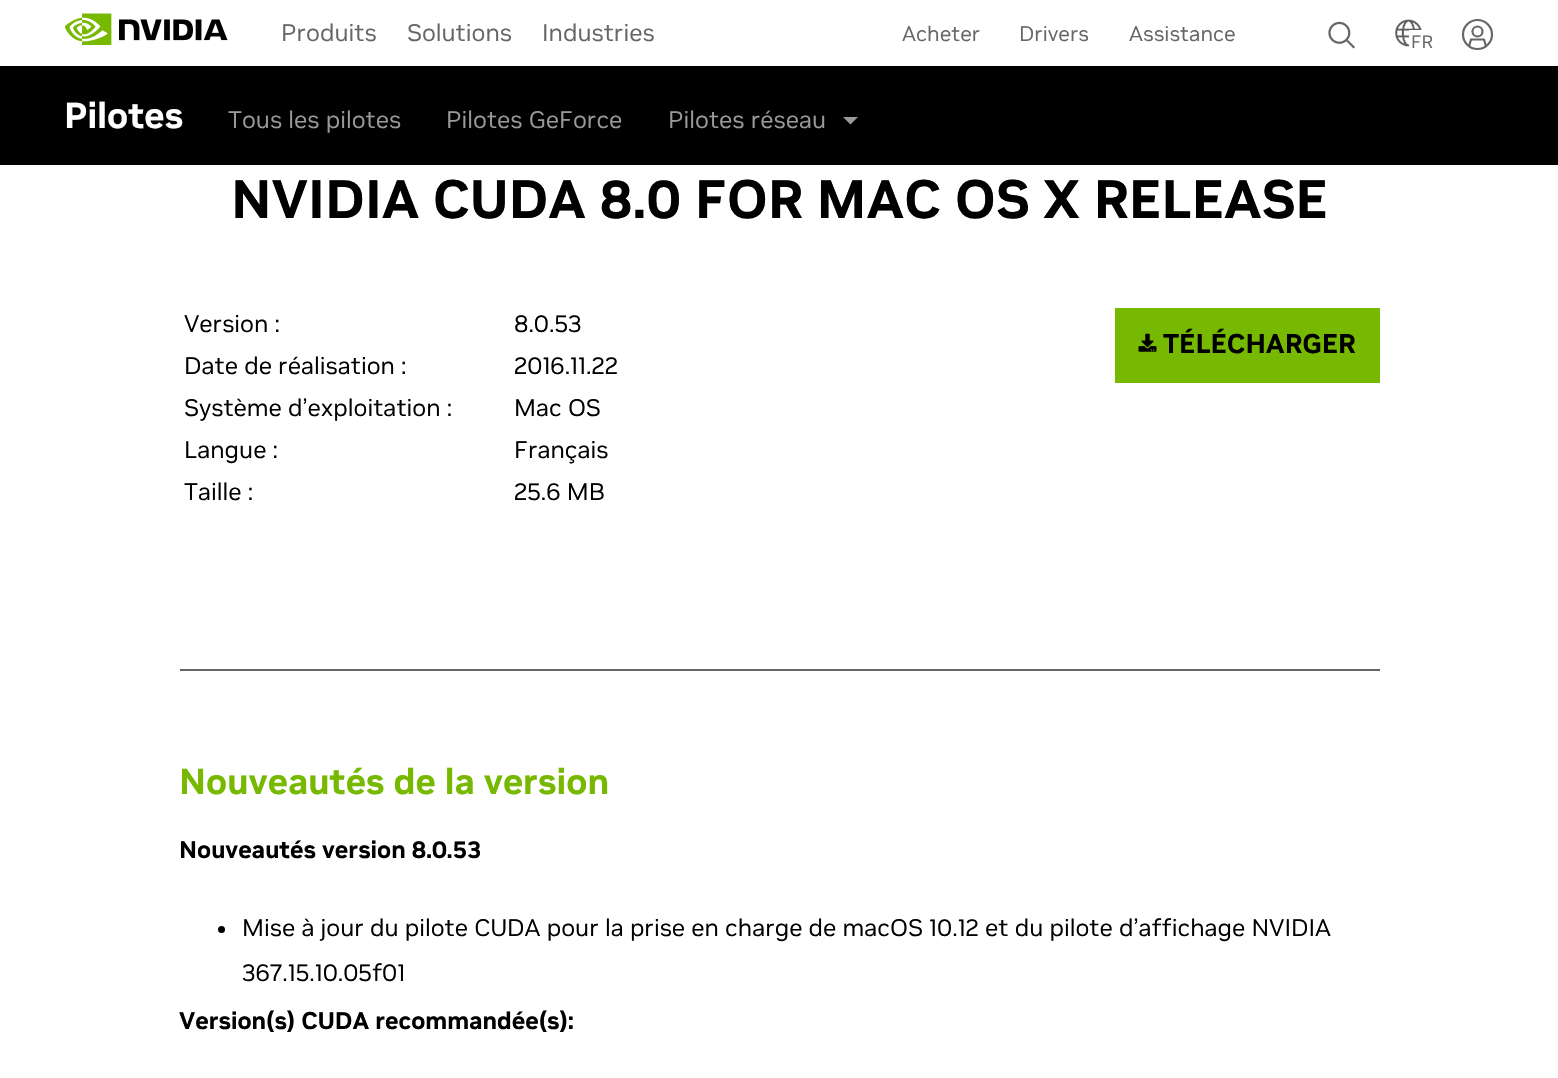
void draw(SkCanvas* canvas) {
  SkPaint paint;
  paint.setAntiAlias(true);
  auto face = [&](const char* family, int weight, float size, bool italic = false) {
    SkFontStyle style(weight, SkFontStyle::kNormal_Width,
      italic ? SkFontStyle::kItalic_Slant : SkFontStyle::kUpright_Slant);
    SkFont result(fontMgr->matchFamilyStyle(family, style), size);
    result.setSubpixel(true);
    return result;
  };
  auto paste = [&](const char* path, float x, float y, float w, float h) {
    auto image = SkImages::DeferredFromEncodedData(SkData::MakeFromFileName(path));
    canvas->drawImageRect(image, SkRect::MakeXYWH(x, y, w, h), SkSamplingOptions());
  };
  auto shape = [&](const char* data, bool evenOdd = false) {
    SkPath result = *SkParsePath::FromSVGString(data);
    if (evenOdd) result.setFillType(SkPathFillType::kEvenOdd);
    return result;
  };
  canvas->clear(0xffffffff);
  paste("img/1.png", 65, 13, 163, 32);
  paste("img/2.png", 1328, 21, 27, 28);
  paste("img/3.png", 1395, 19, 27, 28);
  paint.setColor(0xffffffff);
  canvas->drawRect(SkRect::MakeXYWH(1409, 30, 13, 17), paint);
  paint.setStroke(true);
  paint.setStrokeWidth(2.2f);
  paint.setColor(0xff666666);
  canvas->drawCircle(1477.5f, 34.5f, 14.5f, paint);
  canvas->drawCircle(1477.5f, 31.5f, 5, paint);
  canvas->drawPath(shape("M1486 46.5L1484 39.5H1471L1469 46.5"), paint);
  paint.setStroke(false);
  paint.setColor(0xff000000);
  canvas->drawRect(SkRect::MakeXYWH(0, 66, 1558, 99), paint);
  paint.setColor(0xff999999);
  canvas->drawPath(shape("M843 117L850.5 124.5L858 117Z"), paint);
  paint.setColor(0xff76b900);
  canvas->drawRect(SkRect::MakeXYWH(1115, 308, 265, 75), paint);
  paste("img/4.png", 1138, 333, 19, 19);
  paint.setColor(0xff666666);
  canvas->drawRect(SkRect::MakeXYWH(180, 669, 1200, 2), paint);
  paint.setColor(0xff000000);
  canvas->drawCircle(221.5f, 929.5f, 3.5f, paint);
  auto f0 = face("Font", 400, 24);
  paint.setColor(0xff666666);
  {
    const struct { const char* s; float x, y; } items[] = {
      {"Produits", 281, 41},
      {"Solutions", 407, 41},
      {"Industries", 542, 41},
    };
    for (auto [s, x, y] : items) {
      canvas->drawString(s, x, y, f0, paint);
    }
  }
  auto f1 = face("Font", 400, 21);
  {
    const struct { const char* s; float x, y; } items[] = {
      {"Acheter", 902, 41},
      {"Drivers", 1019, 41},
      {"Assistance", 1129, 41},
    };
    for (auto [s, x, y] : items) {
      canvas->drawString(s, x, y, f1, paint);
    }
  }
  auto f2 = face("Font", 400, 18);
  canvas->drawString("FR", 1411, 48, f2, paint);
  auto f3 = face("Font", 700, 36);
  paint.setColor(0xffffffff);
  canvas->drawString("Pilotes", 64, 128, f3, paint);
  paint.setColor(0xff999999);
  {
    const struct { const char* s; float x, y; } items[] = {
      {"Tous les pilotes", 228, 128},
      {"Pilotes GeForce", 446, 128},
      {"Pilotes réseau", 668, 128},
    };
    for (auto [s, x, y] : items) {
      canvas->drawString(s, x, y, f0, paint);
    }
  }
  auto f4 = face("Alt", 700, 54);
  paint.setColor(0xff000000);
  canvas->drawString("NVIDIA CUDA 8.0 FOR MAC OS X RELEASE", 231, 218, f4, paint);
  canvas->drawString("Version :", 184, 332, f0, paint);
  auto f5 = face("Alt", 400, 24);
  canvas->drawString("8.0.53", 514, 332, f5, paint);
  canvas->drawString("Date de réalisation :", 184, 374, f0, paint);
  canvas->drawString("2016.11.22", 514, 374, f5, paint);
  {
    const struct { const char* s; float x, y; } items[] = {
      {"Système d’exploitation :", 184, 416},
      {"Mac OS", 514, 416},
      {"Langue :", 184, 458},
      {"Français", 514, 458},
      {"Taille :", 184, 500},
    };
    for (auto [s, x, y] : items) {
      canvas->drawString(s, x, y, f0, paint);
    }
  }
  canvas->drawString("25.6 MB", 514, 500, f5, paint);
  auto f6 = face("Font", 700, 27);
  canvas->drawString("TÉLÉCHARGER", 1163, 353, f6, paint);
  paint.setColor(0xff76b900);
  canvas->drawString("Nouveautés de la version", 179, 794, f3, paint);
  auto f7 = face("Font", 700, 24);
  paint.setColor(0xff000000);
  canvas->drawString("Nouveautés version 8.0.53", 179, 858, f7, paint);
  canvas->drawString("Mise à jour du pilote CUDA pour la prise en charge de macOS 10.12 et du pilote d’affichage NVIDIA", 242, 936, f5, paint);
  canvas->drawString("367.15.10.05f01", 242, 981, f5, paint);
  canvas->drawString("Version(s) CUDA recommandée(s):", 179, 1029, f7, paint);
}
